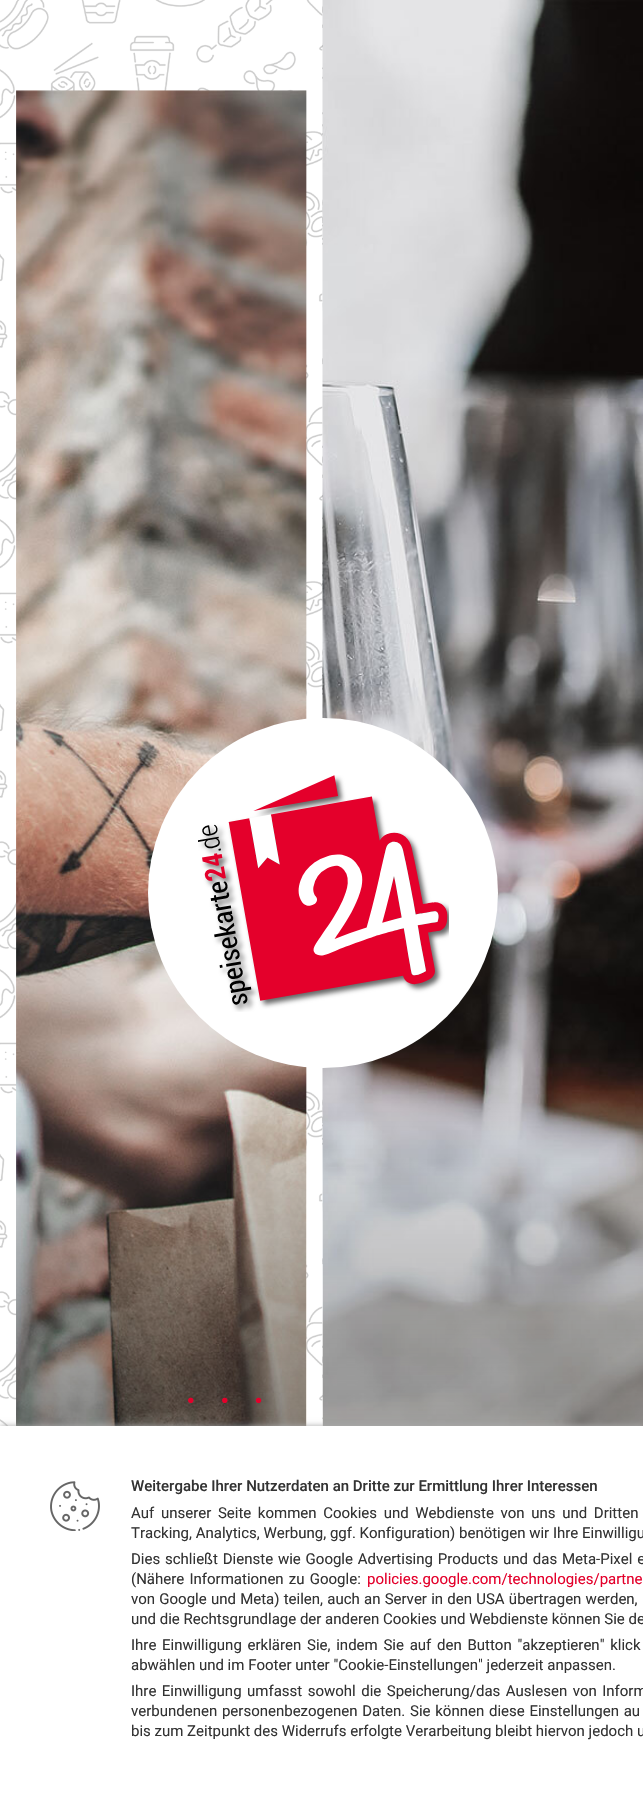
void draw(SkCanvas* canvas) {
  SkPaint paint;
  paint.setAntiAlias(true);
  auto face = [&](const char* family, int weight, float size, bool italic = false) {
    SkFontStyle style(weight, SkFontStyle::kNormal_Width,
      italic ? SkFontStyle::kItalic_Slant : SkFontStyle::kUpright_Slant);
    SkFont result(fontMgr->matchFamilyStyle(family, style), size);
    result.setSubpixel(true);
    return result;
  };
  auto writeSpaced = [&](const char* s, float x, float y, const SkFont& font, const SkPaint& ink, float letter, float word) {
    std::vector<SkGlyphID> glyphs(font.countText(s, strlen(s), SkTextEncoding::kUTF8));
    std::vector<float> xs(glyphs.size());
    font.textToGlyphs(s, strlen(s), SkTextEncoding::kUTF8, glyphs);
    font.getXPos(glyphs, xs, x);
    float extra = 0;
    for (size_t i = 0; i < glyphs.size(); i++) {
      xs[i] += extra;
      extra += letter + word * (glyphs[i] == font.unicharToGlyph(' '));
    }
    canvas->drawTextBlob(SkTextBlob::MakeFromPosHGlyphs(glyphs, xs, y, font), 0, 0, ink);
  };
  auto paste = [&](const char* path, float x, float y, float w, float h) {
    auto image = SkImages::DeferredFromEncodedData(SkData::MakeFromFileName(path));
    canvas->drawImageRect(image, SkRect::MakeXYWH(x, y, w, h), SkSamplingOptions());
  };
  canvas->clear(0xffffffff);
  paste("img/2.png", 0, 0, 323, 1426);
  paste("img/3.png", 322, 0, 1, 1426);
  paste("img/4.png", 16, 90, 291, 1336);
  paste("img/5.png", 322, 0, 321, 1426);
  paint.setColor(0xffffffff);
  canvas->drawCircle(323, 893, 175, paint);
  paste("img/1.png", 198, 775, 251, 237);
  {
    const SkColor colors[] = {0x00000000, 0x99000000};
    const float stops[] = {0.6f, 1};
    const SkPoint ends[] = {{161, 90}, {161, 1718}};
    paint.setShader(SkGradientShader::MakeLinear(ends, colors, stops, 2, SkTileMode::kClamp));
    paint.setAlpha(255);
  }
  canvas->drawRect(SkRect::MakeXYWH(16, 1090, 290, 336), paint);
  paint.setShader(nullptr);
  paint.setColor(0xffaaaaaa);
  paint.setMaskFilter(SkMaskFilter::MakeBlur(kNormal_SkBlurStyle, 3));
  canvas->drawRect(SkRect::MakeXYWH(0, 1426, 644, 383), paint);
  paint.setMaskFilter(nullptr);
  paint.setColor(0xffffffff);
  canvas->drawRect(SkRect::MakeXYWH(0, 1426, 643, 382), paint);
  paste("img/6.png", 50, 1481, 50, 50);
  auto f0 = face("Raleway", 100, 34);
  paint.setColor(0xffe4002b);
  writeSpaced("• • •", 185, 1412, f0, paint, 6.75f, 0);
  auto f1 = face("Roboto", 500, 15);
  paint.setColor(0xff333333);
  canvas->drawString("Weitergabe Ihrer Nutzerdaten an Dritte zur Ermittlung Ihrer Interessen", 131, 1491, f1, paint);
  auto f2 = face("Roboto", 400, 15);
  writeSpaced("Auf unserer Seite kommen Cookies und Webdienste von uns und Dritten", 131, 1518, f2, paint, 0, 2.9f);
  canvas->drawString("Tracking, Analytics, Werbung, ggf. Konfiguration) benötigen wir Ihre Einwilligu", 131, 1538, f2, paint);
  writeSpaced("Dies schließt Dienste wie Google Advertising Products und das Meta-Pixel e", 131, 1564, f2, paint, 0, 1.1f);
  writeSpaced("(Nähere Informationen zu Google:", 131, 1584, f2, paint, 0, 1.5f);
  paint.setColor(0xffe4002b);
  canvas->drawString("policies.google.com/technologies/partne", 367, 1584, f2, paint);
  paint.setColor(0xff333333);
  writeSpaced("von Google und Meta) teilen, auch an Server in den USA übertragen werden,", 131, 1604, f2, paint, 0, 0.5f);
  canvas->drawString("und die Rechtsgrundlage der anderen Cookies und Webdienste können Sie de", 131, 1624, f2, paint);
  writeSpaced("Ihre Einwilligung erklären Sie, indem Sie auf den Button \"akzeptieren\" klick", 131, 1650, f2, paint, 0, 2);
  canvas->drawString("abwählen und im Footer unter \"Cookie-Einstellungen\" jederzeit anpassen.", 131, 1670, f2, paint);
  writeSpaced("Ihre Einwilligung umfasst sowohl die Speicherung/das Auslesen von Inform", 131, 1696, f2, paint, 0, 1.75f);
  writeSpaced("verbundenen personenbezogenen Daten. Sie können diese Einstellungen au", 131, 1716, f2, paint, 0, 1);
  canvas->drawString("bis zum Zeitpunkt des Widerrufs erfolgte Verarbeitung bleibt hiervon jedoch u", 131, 1736, f2, paint);
}
